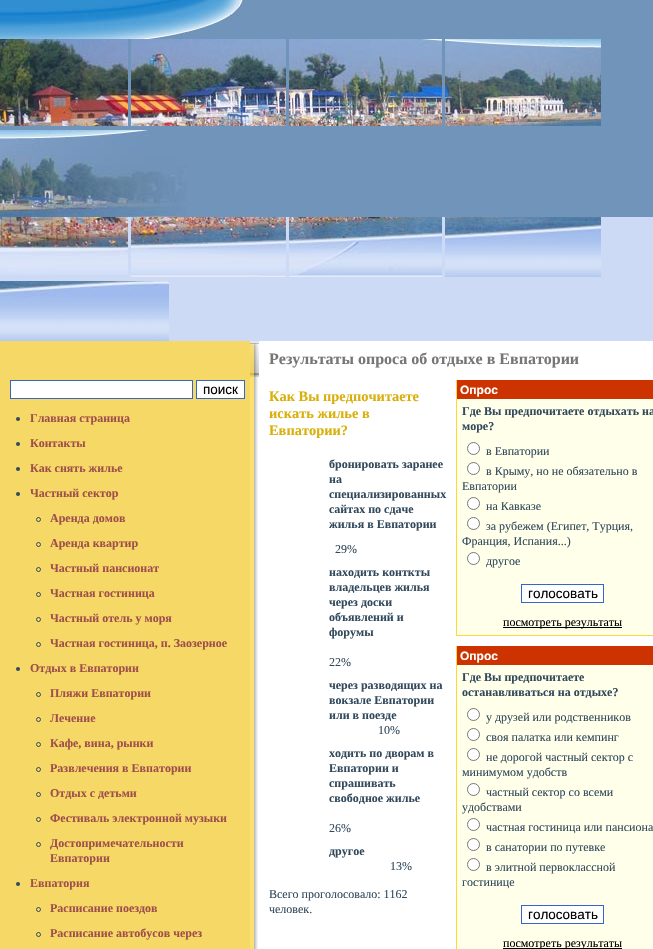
void draw(SkCanvas* canvas) {
  SkPaint paint;
  paint.setAntiAlias(true);
  auto face = [&](const char* family, int weight, float size, bool italic = false) {
    SkFontStyle style(weight, SkFontStyle::kNormal_Width,
      italic ? SkFontStyle::kItalic_Slant : SkFontStyle::kUpright_Slant);
    SkFont result(fontMgr->matchFamilyStyle(family, style), size);
    result.setSubpixel(true);
    return result;
  };
  auto paste = [&](const char* path, float x, float y, float w, float h) {
    auto image = SkImages::DeferredFromEncodedData(SkData::MakeFromFileName(path));
    canvas->drawImageRect(image, SkRect::MakeXYWH(x, y, w, h), SkSamplingOptions());
  };
  canvas->clear(0xffffffff);
  paint.setColor(0xff7094ba);
  canvas->drawRect(SkRect::MakeXYWH(244, 0, 409, 39), paint);
  paste("img/1.png", 0, 0, 244, 39);
  canvas->drawRect(SkRect::MakeXYWH(0, 39, 653, 178), paint);
  paste("img/2.png", 0, 39, 128, 87);
  paste("img/3.png", 131, 39, 155, 87);
  paste("img/4.png", 289, 39, 153, 87);
  paste("img/5.png", 445, 39, 156, 87);
  paste("img/6.png", 0, 130, 187, 87);
  paint.setColor(0xffccdaf6);
  canvas->drawRect(SkRect::MakeXYWH(0, 217, 653, 124), paint);
  paste("img/7.png", 0, 217, 128, 60);
  paste("img/8.png", 131, 217, 155, 60);
  paste("img/9.png", 289, 217, 153, 60);
  paste("img/10.png", 445, 217, 156, 60);
  paste("img/11.png", 0, 281, 169, 60);
  paint.setColor(0xfff5d865);
  canvas->drawRect(SkRect::MakeXYWH(0, 341, 250, 608), paint);
  paste("img/12.png", 250, 341, 9, 36);
  paint.setColor(0xffffffff);
  canvas->drawRect(SkRect::MakeXYWH(10.5f, 380.5f, 182, 18), paint);
  paint.setStroke(true);
  paint.setStrokeWidth(1);
  paint.setColor(0xff3366cc);
  canvas->drawRect(SkRect::MakeXYWH(10.5f, 380.5f, 182, 18), paint);
  paint.setStroke(false);
  paint.setColor(0xffffffff);
  canvas->drawRect(SkRect::MakeXYWH(196.5f, 380.5f, 48, 18), paint);
  paint.setStroke(true);
  paint.setColor(0xff3366cc);
  canvas->drawRect(SkRect::MakeXYWH(196.5f, 380.5f, 48, 18), paint);
  paint.setStroke(false);
  paint.setColor(0xff32495c);
  canvas->drawCircle(18, 419, 2, paint);
  canvas->drawCircle(18, 444, 2, paint);
  canvas->drawCircle(18, 469, 2, paint);
  canvas->drawCircle(18, 494, 2, paint);
  paint.setStroke(true);
  canvas->drawCircle(38.5f, 519.5f, 2, paint);
  canvas->drawCircle(38.5f, 544.5f, 2, paint);
  canvas->drawCircle(38.5f, 569.5f, 2, paint);
  canvas->drawCircle(38.5f, 594.5f, 2, paint);
  canvas->drawCircle(38.5f, 619.5f, 2, paint);
  canvas->drawCircle(38.5f, 644.5f, 2, paint);
  paint.setStroke(false);
  canvas->drawCircle(18, 669, 2, paint);
  paint.setStroke(true);
  canvas->drawCircle(38.5f, 694.5f, 2, paint);
  canvas->drawCircle(38.5f, 719.5f, 2, paint);
  canvas->drawCircle(38.5f, 744.5f, 2, paint);
  canvas->drawCircle(38.5f, 769.5f, 2, paint);
  canvas->drawCircle(38.5f, 794.5f, 2, paint);
  canvas->drawCircle(38.5f, 819.5f, 2, paint);
  canvas->drawCircle(38.5f, 844.5f, 2, paint);
  paint.setStroke(false);
  canvas->drawCircle(18, 884, 2, paint);
  paint.setStroke(true);
  canvas->drawCircle(38.5f, 909.5f, 2, paint);
  canvas->drawCircle(38.5f, 934.5f, 2, paint);
  paste("img/13.png", 250, 377, 8, 572);
  paint.setStroke(false);
  {
    const struct { float x, y, w, h; SkColor color; } items[] = {
      {457, 399, 196, 236, 0xffffffea},
      {456, 635, 197, 1, 0xffffd739},
      {456, 380, 1, 256, 0xffffd739},
      {457, 380, 196, 19, 0xffcc3300},
    };
    for (auto [x, y, w, h, color] : items) {
      paint.setColor(color);
      canvas->drawRect(SkRect::MakeXYWH(x, y, w, h), paint);
    }
  }
  paint.setColor(0xffffffff);
  canvas->drawCircle(473.5f, 448.5f, 6, paint);
  paint.setStroke(true);
  paint.setColor(0xff767676);
  canvas->drawCircle(473.5f, 448.5f, 6, paint);
  paint.setStroke(false);
  paint.setColor(0xffffffff);
  canvas->drawCircle(473.5f, 468.5f, 6, paint);
  paint.setStroke(true);
  paint.setColor(0xff767676);
  canvas->drawCircle(473.5f, 468.5f, 6, paint);
  paint.setStroke(false);
  paint.setColor(0xffffffff);
  canvas->drawCircle(473.5f, 503.5f, 6, paint);
  paint.setStroke(true);
  paint.setColor(0xff767676);
  canvas->drawCircle(473.5f, 503.5f, 6, paint);
  paint.setStroke(false);
  paint.setColor(0xffffffff);
  canvas->drawCircle(473.5f, 523.5f, 6, paint);
  paint.setStroke(true);
  paint.setColor(0xff767676);
  canvas->drawCircle(473.5f, 523.5f, 6, paint);
  paint.setStroke(false);
  paint.setColor(0xffffffff);
  canvas->drawCircle(473.5f, 558.5f, 6, paint);
  paint.setStroke(true);
  paint.setColor(0xff767676);
  canvas->drawCircle(473.5f, 558.5f, 6, paint);
  paint.setStroke(false);
  paint.setColor(0xffffffff);
  canvas->drawRect(SkRect::MakeXYWH(521.5f, 584.5f, 82, 18), paint);
  paint.setStroke(true);
  paint.setColor(0xff3366cc);
  canvas->drawRect(SkRect::MakeXYWH(521.5f, 584.5f, 82, 18), paint);
  paint.setStroke(false);
  {
    const struct { float x, y, w, h; SkColor color; } items[] = {
      {503, 627, 119, 1, 0xff000000},
      {457, 665, 196, 284, 0xffffffea},
      {456, 646, 1, 303, 0xffffd739},
      {457, 646, 196, 19, 0xffcc3300},
    };
    for (auto [x, y, w, h, color] : items) {
      paint.setColor(color);
      canvas->drawRect(SkRect::MakeXYWH(x, y, w, h), paint);
    }
  }
  paint.setColor(0xffffffff);
  canvas->drawCircle(473.5f, 714.5f, 6, paint);
  paint.setStroke(true);
  paint.setColor(0xff767676);
  canvas->drawCircle(473.5f, 714.5f, 6, paint);
  paint.setStroke(false);
  paint.setColor(0xffffffff);
  canvas->drawCircle(473.5f, 734.5f, 6, paint);
  paint.setStroke(true);
  paint.setColor(0xff767676);
  canvas->drawCircle(473.5f, 734.5f, 6, paint);
  paint.setStroke(false);
  paint.setColor(0xffffffff);
  canvas->drawCircle(473.5f, 754.5f, 6, paint);
  paint.setStroke(true);
  paint.setColor(0xff767676);
  canvas->drawCircle(473.5f, 754.5f, 6, paint);
  paint.setStroke(false);
  paint.setColor(0xffffffff);
  canvas->drawCircle(473.5f, 789.5f, 6, paint);
  paint.setStroke(true);
  paint.setColor(0xff767676);
  canvas->drawCircle(473.5f, 789.5f, 6, paint);
  paint.setStroke(false);
  paint.setColor(0xffffffff);
  canvas->drawCircle(473.5f, 824.5f, 6, paint);
  paint.setStroke(true);
  paint.setColor(0xff767676);
  canvas->drawCircle(473.5f, 824.5f, 6, paint);
  paint.setStroke(false);
  paint.setColor(0xffffffff);
  canvas->drawCircle(473.5f, 844.5f, 6, paint);
  paint.setStroke(true);
  paint.setColor(0xff767676);
  canvas->drawCircle(473.5f, 844.5f, 6, paint);
  paint.setStroke(false);
  paint.setColor(0xffffffff);
  canvas->drawCircle(473.5f, 864.5f, 6, paint);
  paint.setStroke(true);
  paint.setColor(0xff767676);
  canvas->drawCircle(473.5f, 864.5f, 6, paint);
  paint.setStroke(false);
  paint.setColor(0xffffffff);
  canvas->drawRect(SkRect::MakeXYWH(521.5f, 905.5f, 82, 18), paint);
  paint.setStroke(true);
  paint.setColor(0xff3366cc);
  canvas->drawRect(SkRect::MakeXYWH(521.5f, 905.5f, 82, 18), paint);
  paint.setStroke(false);
  paint.setColor(0xff000000);
  canvas->drawRect(SkRect::MakeXYWH(503, 948, 119, 1), paint);
  auto f0 = face("Liberation Serif", 700, 16);
  paint.setColor(0xff767775);
  canvas->drawString("Результаты опроса об отдыхе в Евпатории", 269, 364, f0, paint);
  auto f1 = face("Liberation Sans", 400, 13.5f);
  paint.setColor(0xff000000);
  canvas->drawString("поиск", 203, 394, f1, paint);
  auto f2 = face("Liberation Serif", 700, 12);
  paint.setColor(0xff9f4e4c);
  {
    const struct { const char* s; float x, y; } items[] = {
      {"Главная страница", 30, 422},
      {"Контакты", 30, 447},
      {"Как снять жилье", 30, 472},
      {"Частный сектор", 30, 497},
      {"Аренда домов", 50, 522},
      {"Аренда квартир", 50, 547},
      {"Частный пансионат", 50, 572},
      {"Частная гостиница", 50, 597},
      {"Частный отель у моря", 50, 622},
      {"Частная гостиница, п. Заозерное", 50, 647},
      {"Отдых в Евпатории", 30, 672},
      {"Пляжи Евпатории", 50, 697},
      {"Лечение", 50, 722},
      {"Кафе, вина, рынки", 50, 747},
      {"Развлечения в Евпатории", 50, 772},
      {"Отдых с детьми", 50, 797},
      {"Фестиваль электронной музыки", 50, 822},
      {"Достопримечательности", 50, 847},
      {"Евпатории", 50, 862},
      {"Евпатория", 30, 887},
      {"Расписание поездов", 50, 912},
      {"Расписание автобусов через", 50, 937},
    };
    for (auto [s, x, y] : items) {
      canvas->drawString(s, x, y, f2, paint);
    }
  }
  auto f3 = face("Liberation Serif", 700, 14.4f);
  paint.setColor(0xffd9af0b);
  {
    const struct { const char* s; float x, y; } items[] = {
      {"Как Вы предпочитаете", 269, 401},
      {"искать жилье в", 269, 418},
      {"Евпатории?", 269, 435},
    };
    for (auto [s, x, y] : items) {
      canvas->drawString(s, x, y, f3, paint);
    }
  }
  paint.setColor(0xff32495c);
  {
    const struct { const char* s; float x, y; } items[] = {
      {"бронировать заранее", 329, 468},
      {"на", 329, 483},
      {"специализированных", 329, 498},
      {"сайтах по сдаче", 329, 513},
      {"жилья в Евпатории", 329, 528},
    };
    for (auto [s, x, y] : items) {
      canvas->drawString(s, x, y, f2, paint);
    }
  }
  auto f4 = face("Liberation Serif", 400, 12);
  canvas->drawString("29%", 335, 553, f4, paint);
  {
    const struct { const char* s; float x, y; } items[] = {
      {"находить конткты", 329, 576},
      {"владельцев жилья", 329, 591},
      {"через доски", 329, 606},
      {"объявлений и", 329, 621},
      {"форумы", 329, 636},
    };
    for (auto [s, x, y] : items) {
      canvas->drawString(s, x, y, f2, paint);
    }
  }
  canvas->drawString("22%", 329, 666, f4, paint);
  {
    const struct { const char* s; float x, y; } items[] = {
      {"через разводящих на", 329, 689},
      {"вокзале Евпатории", 329, 704},
      {"или в поезде", 329, 719},
    };
    for (auto [s, x, y] : items) {
      canvas->drawString(s, x, y, f2, paint);
    }
  }
  canvas->drawString("10%", 378, 734, f4, paint);
  {
    const struct { const char* s; float x, y; } items[] = {
      {"ходить по дворам в", 329, 757},
      {"Евпатории и", 329, 772},
      {"спрашивать", 329, 787},
      {"свободное жилье", 329, 802},
    };
    for (auto [s, x, y] : items) {
      canvas->drawString(s, x, y, f2, paint);
    }
  }
  canvas->drawString("26%", 329, 832, f4, paint);
  canvas->drawString("другое", 329, 855, f2, paint);
  {
    const struct { const char* s; float x, y; } items[] = {
      {"13%", 390, 870},
      {"Всего проголосовало: 1162", 269, 898},
      {"человек.", 269, 913},
    };
    for (auto [s, x, y] : items) {
      canvas->drawString(s, x, y, f4, paint);
    }
  }
  auto f5 = face("Liberation Sans", 700, 12);
  paint.setColor(0xffffffff);
  canvas->drawString("Опрос", 460, 394, f5, paint);
  paint.setColor(0xff32495c);
  canvas->drawString("Где Вы предпочитаете отдыхать на", 462, 415, f2, paint);
  canvas->drawString("море?", 462, 430, f2, paint);
  {
    const struct { const char* s; float x, y; } items[] = {
      {"в Евпатории", 486, 455},
      {"в Крыму, но не обязательно в", 486, 475},
      {"Евпатории", 462, 490},
      {"на Кавказе", 486, 510},
      {"за рубежем (Египет, Турция,", 486, 530},
      {"Франция, Испания...)", 462, 545},
      {"другое", 486, 565},
    };
    for (auto [s, x, y] : items) {
      canvas->drawString(s, x, y, f4, paint);
    }
  }
  paint.setColor(0xff000000);
  canvas->drawString("голосовать", 528, 598, f1, paint);
  canvas->drawString("посмотреть результаты", 503, 626, f4, paint);
  paint.setColor(0xffffffff);
  canvas->drawString("Опрос", 460, 660, f5, paint);
  paint.setColor(0xff32495c);
  canvas->drawString("Где Вы предпочитаете", 462, 681, f2, paint);
  canvas->drawString("останавливаться на отдыхе?", 462, 696, f2, paint);
  {
    const struct { const char* s; float x, y; } items[] = {
      {"у друзей или родственников", 486, 721},
      {"своя палатка или кемпинг", 486, 741},
      {"не дорогой частный сектор с", 486, 761},
      {"минимумом удобств", 462, 776},
      {"частный сектор со всеми", 486, 796},
      {"удобствами", 462, 811},
      {"частная гостиница или пансиона", 486, 831},
      {"в санатории по путевке", 486, 851},
      {"в элитной первоклассной", 486, 871},
      {"гостинице", 462, 886},
    };
    for (auto [s, x, y] : items) {
      canvas->drawString(s, x, y, f4, paint);
    }
  }
  paint.setColor(0xff000000);
  canvas->drawString("голосовать", 528, 919, f1, paint);
  canvas->drawString("посмотреть результаты", 503, 947, f4, paint);
}
